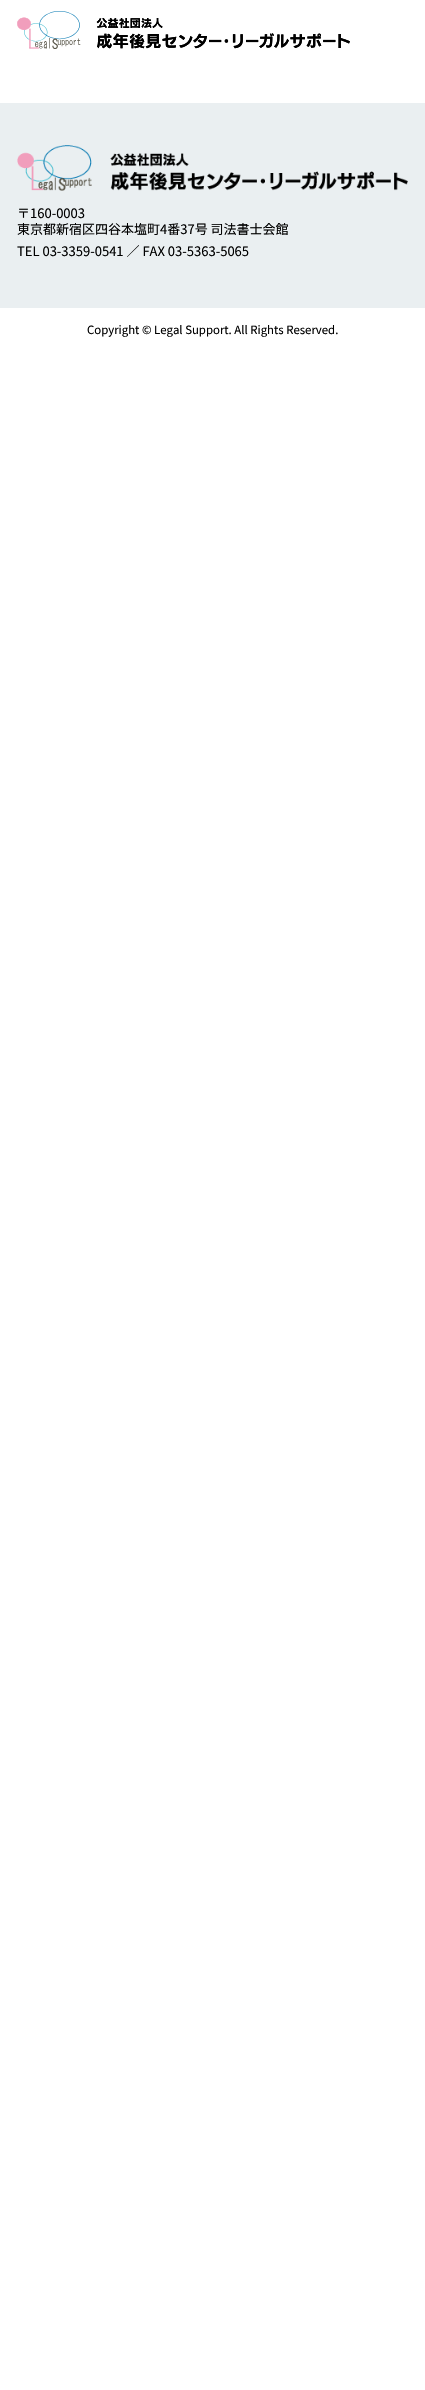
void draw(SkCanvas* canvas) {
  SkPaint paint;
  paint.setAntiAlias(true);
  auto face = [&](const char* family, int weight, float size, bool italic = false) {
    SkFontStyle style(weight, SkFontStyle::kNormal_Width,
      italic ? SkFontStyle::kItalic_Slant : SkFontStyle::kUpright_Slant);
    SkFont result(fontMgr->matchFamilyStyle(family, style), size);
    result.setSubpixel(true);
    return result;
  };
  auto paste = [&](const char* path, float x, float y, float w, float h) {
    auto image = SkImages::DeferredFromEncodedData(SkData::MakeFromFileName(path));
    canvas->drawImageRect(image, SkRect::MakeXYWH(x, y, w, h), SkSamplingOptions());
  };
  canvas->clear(0xffffffff);
  paste("img/1.png", 17, 11, 333, 38);
  paint.setColor(0xffeaeff1);
  canvas->drawRect(SkRect::MakeXYWH(0, 103, 425, 205), paint);
  paste("img/2.png", 17, 145, 391, 46);
  auto f0 = face("Noto Sans JP", 400, 13);
  paint.setColor(0xff000000);
  {
    const struct { const char* s; float x, y; } items[] = {
      {"〒160-0003", 17, 218},
      {"東京都新宿区四谷本塩町4番37号 司法書士会館", 17, 234},
      {"TEL 03-3359-0541 ／ FAX 03-5363-5065", 17, 256},
    };
    for (auto [s, x, y] : items) {
      canvas->drawString(s, x, y, f0, paint);
    }
  }
  auto f1 = face("Noto Sans JP", 400, 11.4f);
  canvas->drawString("Copyright © Legal Support. All Rights Reserved.", 87, 334, f1, paint);
}
